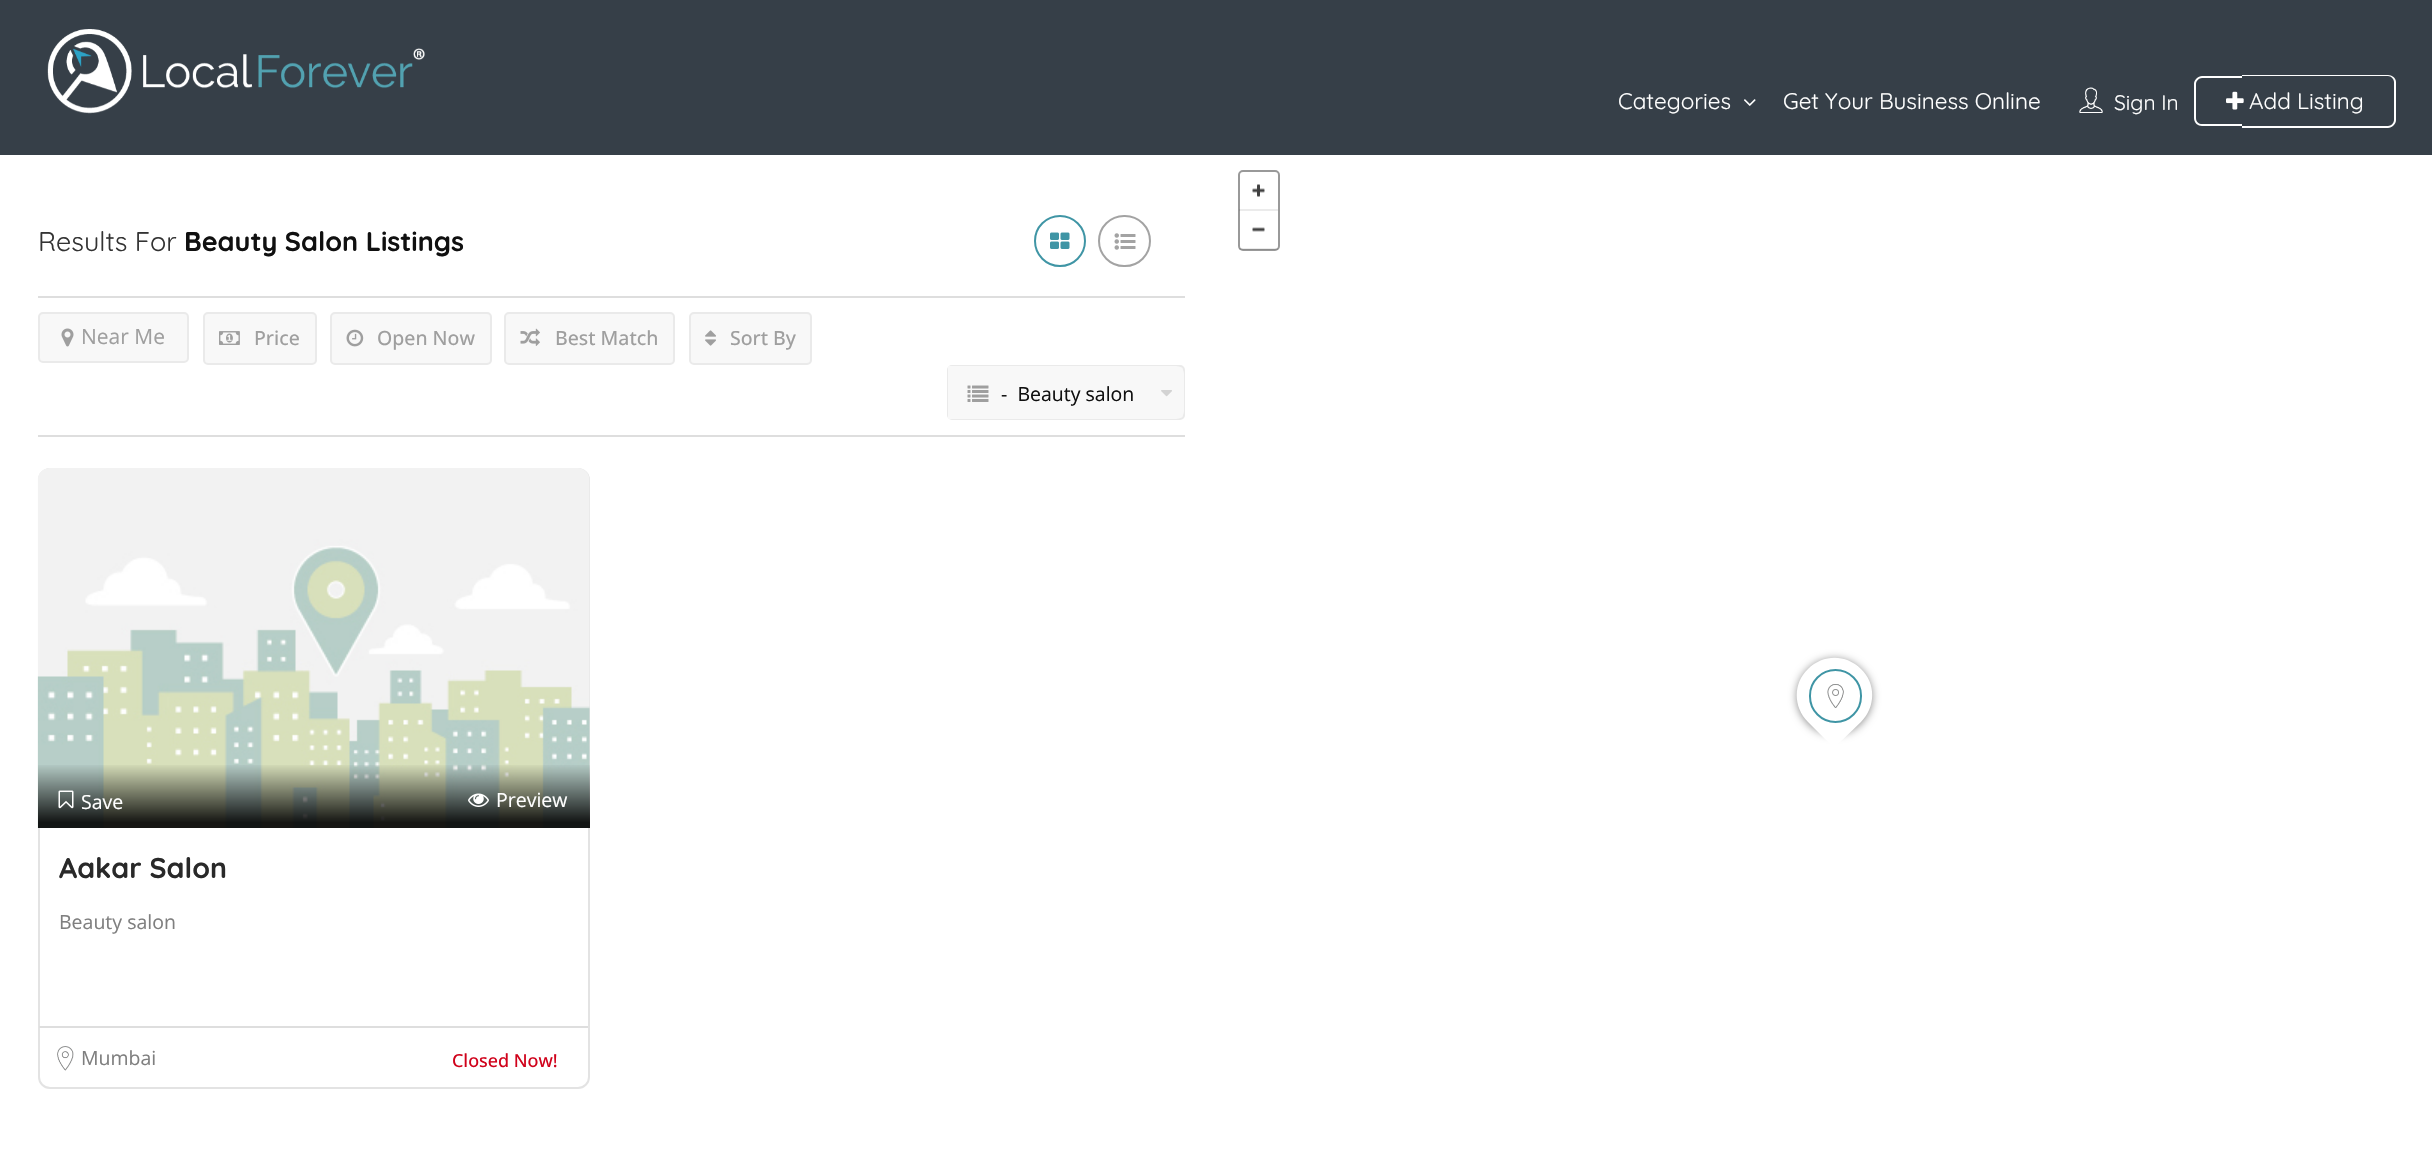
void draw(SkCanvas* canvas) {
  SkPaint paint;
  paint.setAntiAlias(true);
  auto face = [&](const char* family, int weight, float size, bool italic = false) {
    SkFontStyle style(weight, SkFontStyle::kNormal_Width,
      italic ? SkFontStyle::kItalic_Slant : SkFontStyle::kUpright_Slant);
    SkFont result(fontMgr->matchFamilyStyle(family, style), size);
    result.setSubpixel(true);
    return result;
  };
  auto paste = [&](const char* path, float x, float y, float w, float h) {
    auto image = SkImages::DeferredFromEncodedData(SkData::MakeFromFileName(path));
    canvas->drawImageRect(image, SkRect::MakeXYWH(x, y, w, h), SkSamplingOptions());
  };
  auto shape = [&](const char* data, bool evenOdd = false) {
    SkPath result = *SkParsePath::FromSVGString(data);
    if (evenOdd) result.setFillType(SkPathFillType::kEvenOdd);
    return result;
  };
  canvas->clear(0xffffffff);
  paint.setColor(0xff363f48);
  canvas->drawRect(SkRect::MakeXYWH(0, 0, 2432, 155), paint);
  paste("img/1.png", 47, 29, 378, 85);
  paste("img/2.png", 1744, 99, 12, 7);
  paste("img/3.png", 2079, 87, 24, 26);
  paint.setColor(0xffffffff);
  canvas->drawPath(shape("M2202 76H2242V126H2202C2198 126 2194 123 2194 118V84C2194 80 2198 76 2202 76ZM2202 78H2242V124H2202C2199 124 2196 122 2196 118V84C2196 81 2199 78 2202 78Z", true), paint);
  canvas->drawPath(shape("M2242 75H2388C2392 75 2396 78 2396 82V120C2396 124 2392 128 2388 128H2242ZM2242 76H2388C2391 76 2394 79 2394 82V120C2394 123 2391 126 2388 126H2242Z", true), paint);
  paste("img/4.png", 2226, 91, 18, 19);
  paint.setStroke(true);
  paint.setStrokeWidth(2);
  paint.setColor(0xff3f95a5);
  canvas->drawCircle(1060, 241, 25, paint);
  paste("img/5.png", 1050, 232, 20, 17);
  paint.setColor(0xffa3a3a3);
  canvas->drawRoundRect(SkRect::MakeXYWH(1099, 216, 51, 50), 25, 25, paint);
  paste("img/6.png", 1114, 233, 22, 17);
  paint.setStroke(false);
  paint.setColor(0xffdedede);
  canvas->drawRect(SkRect::MakeXYWH(38, 296, 1147, 2), paint);
  canvas->drawRect(SkRect::MakeXYWH(38, 435, 1147, 2), paint);
  paint.setColor(0xfff8f8f8);
  canvas->drawRoundRect(SkRect::MakeXYWH(39, 313, 149, 49), 4, 4, paint);
  paint.setStroke(true);
  paint.setColor(0xffeaeaea);
  canvas->drawRoundRect(SkRect::MakeXYWH(39, 313, 149, 49), 4, 4, paint);
  paste("img/7.png", 61, 328, 13, 19);
  paint.setStroke(false);
  paint.setColor(0xfff8f8f8);
  canvas->drawRoundRect(SkRect::MakeXYWH(204, 313, 112, 51), 4, 4, paint);
  paint.setStroke(true);
  paint.setColor(0xffeaeaea);
  canvas->drawRoundRect(SkRect::MakeXYWH(204, 313, 112, 51), 4, 4, paint);
  paste("img/8.png", 219, 331, 21, 14);
  paint.setStroke(false);
  paint.setColor(0xfff8f8f8);
  canvas->drawRoundRect(SkRect::MakeXYWH(331, 313, 160, 51), 4, 4, paint);
  paint.setStroke(true);
  paint.setColor(0xffeaeaea);
  canvas->drawRoundRect(SkRect::MakeXYWH(331, 313, 160, 51), 4, 4, paint);
  paste("img/9.png", 346, 329, 18, 18);
  paint.setStroke(false);
  paint.setColor(0xfff8f8f8);
  canvas->drawRoundRect(SkRect::MakeXYWH(505, 313, 169, 51), 4, 4, paint);
  paint.setStroke(true);
  paint.setColor(0xffeaeaea);
  canvas->drawRoundRect(SkRect::MakeXYWH(505, 313, 169, 51), 4, 4, paint);
  paste("img/10.png", 520, 328, 20, 18);
  paint.setStroke(false);
  paint.setColor(0xfff8f8f8);
  canvas->drawRoundRect(SkRect::MakeXYWH(690, 313, 121, 51), 4, 4, paint);
  paint.setStroke(true);
  paint.setColor(0xffeaeaea);
  canvas->drawRoundRect(SkRect::MakeXYWH(690, 313, 121, 51), 4, 4, paint);
  paste("img/11.png", 705, 330, 11, 16);
  paint.setStroke(false);
  paint.setColor(0xfff8f8f8);
  canvas->drawRoundRect(SkRect::MakeXYWH(948, 366, 236, 53), 4, 4, paint);
  paint.setStroke(true);
  paint.setColor(0xffeaeaea);
  canvas->drawRoundRect(SkRect::MakeXYWH(948, 366, 236, 53), 4, 4, paint);
  paint.setStroke(false);
  paint.setColor(0xfff8f8f8);
  canvas->drawRect(SkRect::MakeXYWH(948, 366, 41, 53), paint);
  paste("img/12.png", 967, 385, 22, 17);
  canvas->drawPath(shape("M989 366H1176C1180.5 366 1184 369.5 1184 374V411C1184 415.5 1180.5 419 1176 419H989Z"), paint);
  paste("img/13.png", 1161, 390, 11, 7);
  paint.setStroke(true);
  paint.setColor(0xffe3e3e3);
  canvas->drawRoundRect(SkRect::MakeXYWH(39, 469, 550, 619), 11, 11, paint);
  paste("img/14.png", 37, 468, 553, 360);
  paint.setStroke(false);
  {
    const SkColor colors[] = {0xe6000000, 0x00000000};
    const float stops[] = {0.08f, 0.94f};
    const SkPoint ends[] = {{314, 828}, {314, 759}};
    paint.setShader(SkGradientShader::MakeLinear(ends, colors, stops, 2, SkTileMode::kClamp));
    paint.setAlpha(255);
  }
  canvas->drawRect(SkRect::MakeXYWH(38, 765, 552, 63), paint);
  paste("img/15.png", 58, 790, 16, 19);
  paste("img/16.png", 468, 793, 21, 14);
  paint.setShader(nullptr);
  paint.setColor(0xffdedede);
  canvas->drawRect(SkRect::MakeXYWH(39, 1026, 549, 2), paint);
  paste("img/17.png", 57, 1046, 17, 25);
  paint.setStroke(true);
  paint.setColor(0xff999999);
  canvas->drawRoundRect(SkRect::MakeXYWH(1239, 171, 40, 79), 4, 4, paint);
  paste("img/18.png", 1252, 184, 13, 13);
  paint.setStroke(false);
  paint.setColor(0x14000000);
  canvas->drawRect(SkRect::MakeXYWH(1239, 209, 39, 2), paint);
  paste("img/19.png", 1252, 227, 13, 5);
  canvas->drawRect(SkRect::MakeXYWH(1239, 248, 39, 2), paint);
  paint.setColor(0x78000000);
  paint.setMaskFilter(SkMaskFilter::MakeBlur(kNormal_SkBlurStyle, 4));
  canvas->drawRoundRect(SkRect::MakeXYWH(1797, 659, 75, 75), 37.5f, 37.5f, paint);
  paint.setMaskFilter(nullptr);
  paint.setColor(0xffffffff);
  canvas->drawPath(shape("M1808 669C1823 654 1846 654 1861 669C1876 683 1876 707 1861 722L1834 748L1808 722C1793 707 1793 683 1808 669Z"), paint);
  paint.setStroke(true);
  paint.setColor(0xff3f95a5);
  canvas->drawRoundRect(SkRect::MakeXYWH(1810, 670, 51, 52), 25.5f, 25.5f, paint);
  paste("img/20.png", 1827, 684, 17, 24);
  auto f0 = face("Quicksand", 400, 22.5f);
  paint.setStroke(false);
  paint.setColor(0xffffffff);
  canvas->drawString("Categories", 1618, 109, f0, paint);
  canvas->drawString("Get Your Business Online", 1783, 109, f0, paint);
  auto f1 = face("Quicksand", 400, 21);
  canvas->drawString("Sign In", 2114, 110, f1, paint);
  canvas->drawString("Add Listing", 2249, 109, f0, paint);
  auto f2 = face("Quicksand", 400, 27);
  paint.setColor(0xff333333);
  canvas->drawString("Results For", 38, 251, f2, paint);
  auto f3 = face("Quicksand", 700, 27);
  paint.setColor(0xff101010);
  canvas->drawString("Beauty Salon Listings", 184, 251, f3, paint);
  auto f4 = face("Open Sans", 400, 21);
  paint.setColor(0xff9f9f9f);
  canvas->drawString("Near Me", 81, 344, f4, paint);
  auto f5 = face("Open Sans", 500, 19.5f);
  {
    const struct { const char* s; float x, y; } items[] = {
      {"Price", 254, 345},
      {"Open Now", 377, 345},
      {"Best Match", 555, 345},
      {"Sort By", 730, 345},
    };
    for (auto [s, x, y] : items) {
      canvas->drawString(s, x, y, f5, paint);
    }
  }
  auto f6 = face("Open Sans", 400, 19.5f);
  paint.setColor(0xff101010);
  canvas->drawString("-  Beauty salon", 1001, 401, f6, paint);
  paint.setColor(0xffffffff);
  canvas->drawString("Save", 81, 809, f6, paint);
  canvas->drawString("Preview", 496, 807, f6, paint);
  auto f7 = face("Quicksand", 700, 28.5f);
  paint.setColor(0xff292929);
  canvas->drawString("Aakar Salon", 59, 878, f7, paint);
  paint.setColor(0xff7f7f7f);
  canvas->drawString("Beauty salon", 59, 929, f6, paint);
  canvas->drawString("Mumbai", 81, 1065, f6, paint);
  auto f8 = face("Open Sans", 500, 18);
  paint.setColor(0xffd0021b);
  canvas->drawString("Closed Now!", 452, 1067, f8, paint);
}
